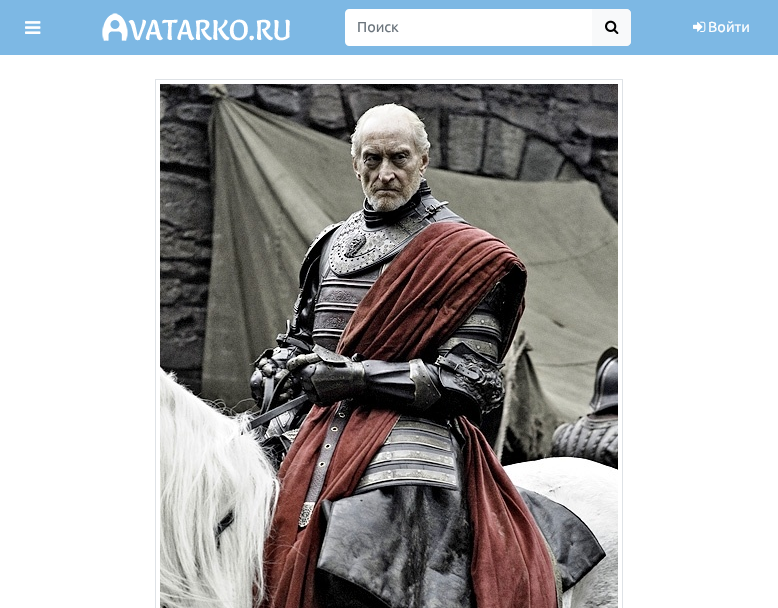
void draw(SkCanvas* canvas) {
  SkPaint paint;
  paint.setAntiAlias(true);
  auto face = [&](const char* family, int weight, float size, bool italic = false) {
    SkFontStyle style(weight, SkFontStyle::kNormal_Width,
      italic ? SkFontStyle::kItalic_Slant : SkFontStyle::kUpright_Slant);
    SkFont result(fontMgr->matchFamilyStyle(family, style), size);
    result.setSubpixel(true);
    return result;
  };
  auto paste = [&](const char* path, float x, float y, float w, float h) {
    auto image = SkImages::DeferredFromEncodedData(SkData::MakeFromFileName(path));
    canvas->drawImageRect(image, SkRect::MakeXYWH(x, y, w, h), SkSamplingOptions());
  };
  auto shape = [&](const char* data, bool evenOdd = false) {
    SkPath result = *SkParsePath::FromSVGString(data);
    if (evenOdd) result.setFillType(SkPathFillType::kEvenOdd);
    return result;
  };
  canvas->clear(0xff7db8e4);
  paste("img/1.png", 25, 21, 16, 13);
  paste("img/2.png", 102, 13, 188, 28);
  paint.setColor(0xffffffff);
  canvas->drawPath(shape("M349 9H593V46H349C347 46 345 44 345 42V13C345 11 347 9 349 9Z"), paint);
  paint.setColor(0xfff8f9fa);
  canvas->drawPath(shape("M592.5 9.5H627C629 9.5 630.5 11 630.5 13V42C630.5 44 629 45.5 627 45.5H592.5Z"), paint);
  paint.setStroke(true);
  paint.setStrokeWidth(1);
  canvas->drawPath(shape("M592.5 9.5H627C629 9.5 630.5 11 630.5 13V42C630.5 44 629 45.5 627 45.5H592.5Z"), paint);
  paste("img/3.png", 605, 20, 14, 14);
  paste("img/4.png", 693, 21, 13, 11);
  paint.setStroke(false);
  paint.setColor(0xffffffff);
  canvas->drawRect(SkRect::MakeXYWH(0, 55, 778, 553), paint);
  paint.setStroke(true);
  paint.setColor(0xffdee2e6);
  canvas->drawRect(SkRect::MakeXYWH(155.5f, 79.5f, 467, 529), paint);
  paste("img/5.png", 160, 84, 458, 524);
  auto f0 = face("Ubuntu", 400, 14.5f);
  paint.setStroke(false);
  paint.setColor(0xff6c757d);
  canvas->drawString("Поиск", 357, 32, f0, paint);
  paint.setColor(0xffffffff);
  canvas->drawString("Войти", 708, 32, f0, paint);
}
